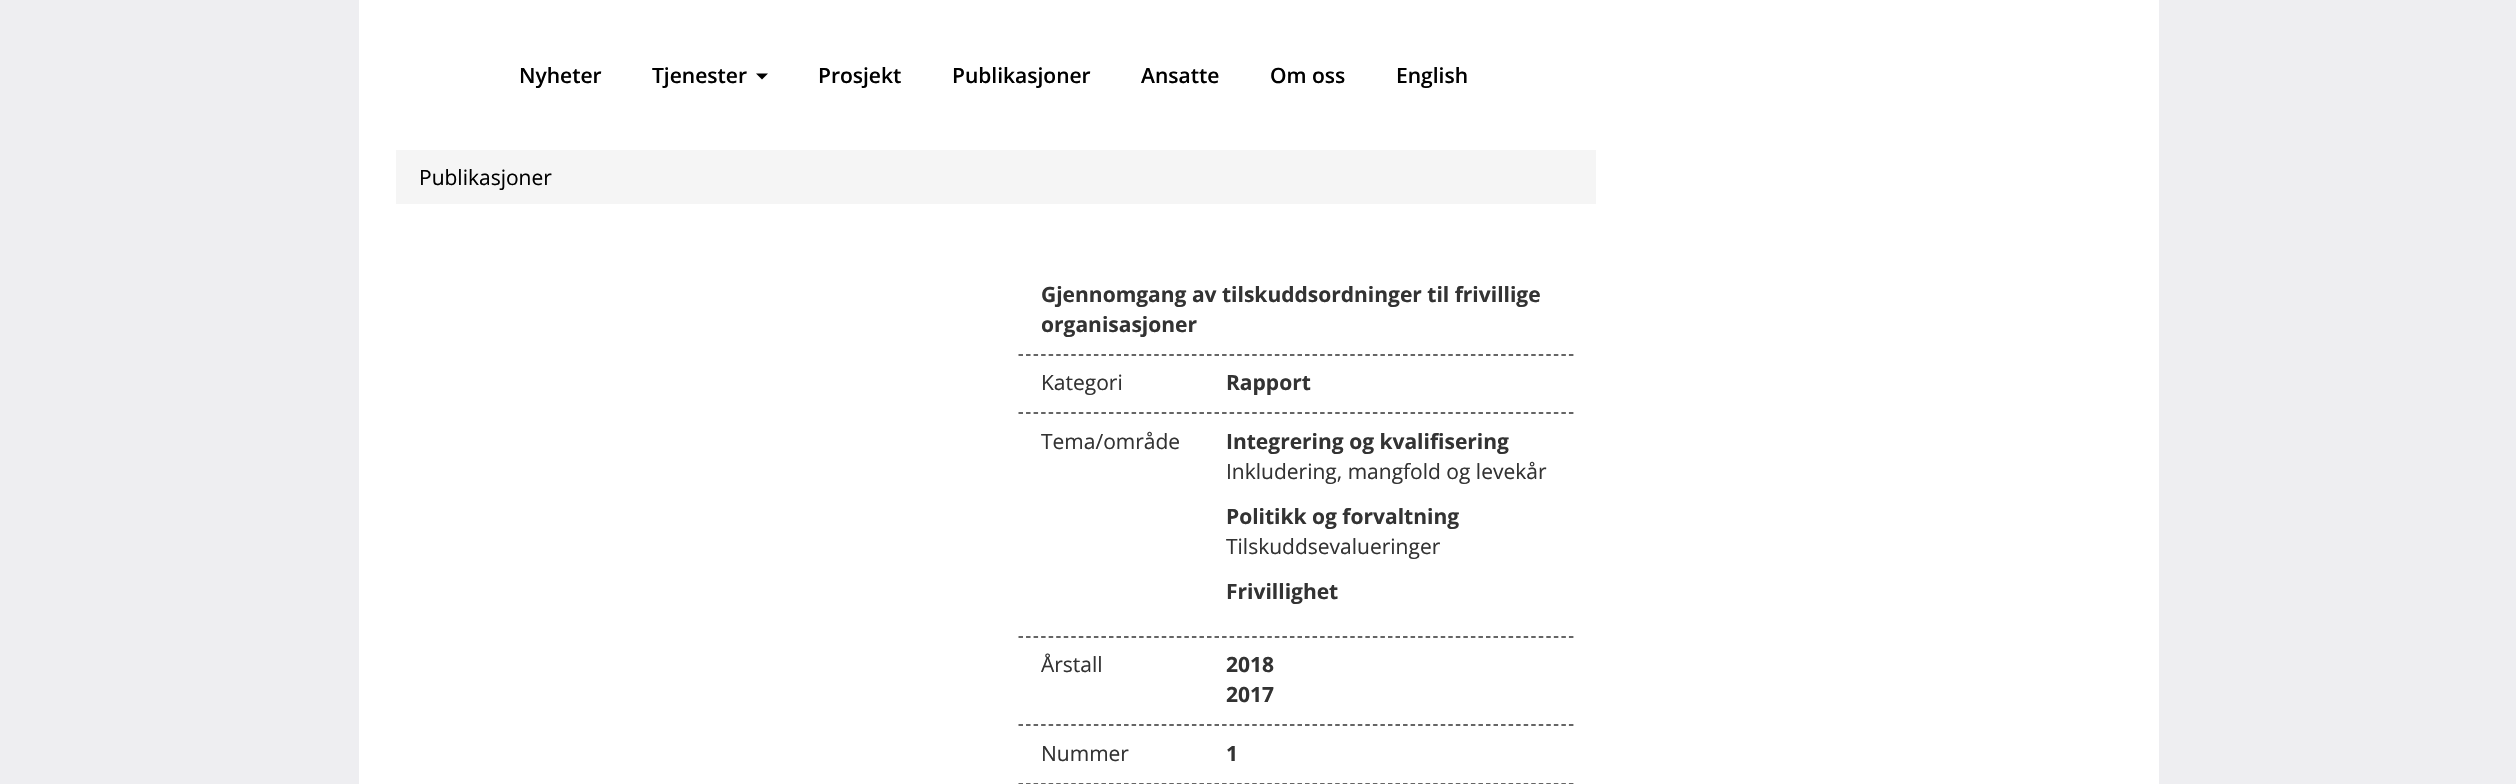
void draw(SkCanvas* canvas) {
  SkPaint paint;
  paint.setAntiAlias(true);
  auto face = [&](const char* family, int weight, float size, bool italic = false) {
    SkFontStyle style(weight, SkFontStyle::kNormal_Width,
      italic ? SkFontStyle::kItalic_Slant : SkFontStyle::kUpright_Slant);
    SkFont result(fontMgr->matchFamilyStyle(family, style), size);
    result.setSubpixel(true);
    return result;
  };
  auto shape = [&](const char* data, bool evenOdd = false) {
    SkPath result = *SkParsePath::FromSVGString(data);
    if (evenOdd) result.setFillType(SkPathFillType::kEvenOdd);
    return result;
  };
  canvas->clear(0xffeeeef1);
  paint.setColor(0xffffffff);
  canvas->drawRect(SkRect::MakeXYWH(359, 0, 1800, 784), paint);
  paint.setColor(0xff000000);
  canvas->drawPath(shape("M756 73.5H768L762 79.5Z"), paint);
  paint.setColor(0xfff5f5f5);
  canvas->drawRect(SkRect::MakeXYWH(396, 150, 1200, 54), paint);
  paint.setStroke(true);
  paint.setStrokeWidth(1.5f);
  paint.setColor(0xff323232);
  paint.setPathEffect(SkDashPathEffect::Make({{4.5f, 3.04f}}, 0));
  canvas->drawPath(shape("M1018.5 355H1573.5"), paint);
  paint.setPathEffect(nullptr);
  paint.setPathEffect(SkDashPathEffect::Make({{4.5f, 3.04f}}, 0));
  canvas->drawPath(shape("M1018.5 413H1573.5"), paint);
  paint.setPathEffect(nullptr);
  paint.setPathEffect(SkDashPathEffect::Make({{4.5f, 3.04f}}, 0));
  canvas->drawPath(shape("M1018.5 637H1573.5"), paint);
  paint.setPathEffect(nullptr);
  paint.setPathEffect(SkDashPathEffect::Make({{4.5f, 3.04f}}, 0));
  canvas->drawPath(shape("M1018.5 725H1573.5"), paint);
  paint.setPathEffect(nullptr);
  paint.setPathEffect(SkDashPathEffect::Make({{4.5f, 3.04f}}, 0));
  canvas->drawPath(shape("M1018.5 784H1573.5"), paint);
  paint.setPathEffect(nullptr);
  auto f0 = face("Open Sans", 600, 21);
  paint.setStroke(false);
  paint.setColor(0xff000000);
  {
    const struct { const char* s; float x, y; } items[] = {
      {"Nyheter", 519, 83},
      {"Tjenester", 652, 83},
      {"Prosjekt", 818, 83},
      {"Publikasjoner", 952, 83},
      {"Ansatte", 1141, 83},
      {"Om oss", 1270, 83},
      {"English", 1396, 83},
    };
    for (auto [s, x, y] : items) {
      canvas->drawString(s, x, y, f0, paint);
    }
  }
  auto f1 = face("Open Sans", 400, 21);
  canvas->drawString("Publikasjoner", 419, 185, f1, paint);
  auto f2 = face("Open Sans", 700, 21);
  paint.setColor(0xff333333);
  canvas->drawString("Gjennomgang av tilskuddsordninger til frivillige", 1041, 302, f2, paint);
  canvas->drawString("organisasjoner", 1041, 332, f2, paint);
  canvas->drawString("Kategori", 1041, 390, f1, paint);
  canvas->drawString("Rapport", 1226, 390, f2, paint);
  canvas->drawString("Tema/område", 1041, 449, f1, paint);
  canvas->drawString("Integrering og kvalifisering", 1226, 449, f2, paint);
  canvas->drawString("Inkludering, mangfold og levekår", 1226, 479, f1, paint);
  canvas->drawString("Politikk og forvaltning", 1226, 524, f2, paint);
  canvas->drawString("Tilskuddsevalueringer", 1226, 554, f1, paint);
  canvas->drawString("Frivillighet", 1226, 599, f2, paint);
  canvas->drawString("Årstall", 1041, 672, f1, paint);
  canvas->drawString("2018", 1226, 672, f2, paint);
  canvas->drawString("2017", 1226, 702, f2, paint);
  canvas->drawString("Nummer", 1041, 761, f1, paint);
  canvas->drawString("1", 1226, 761, f2, paint);
}
